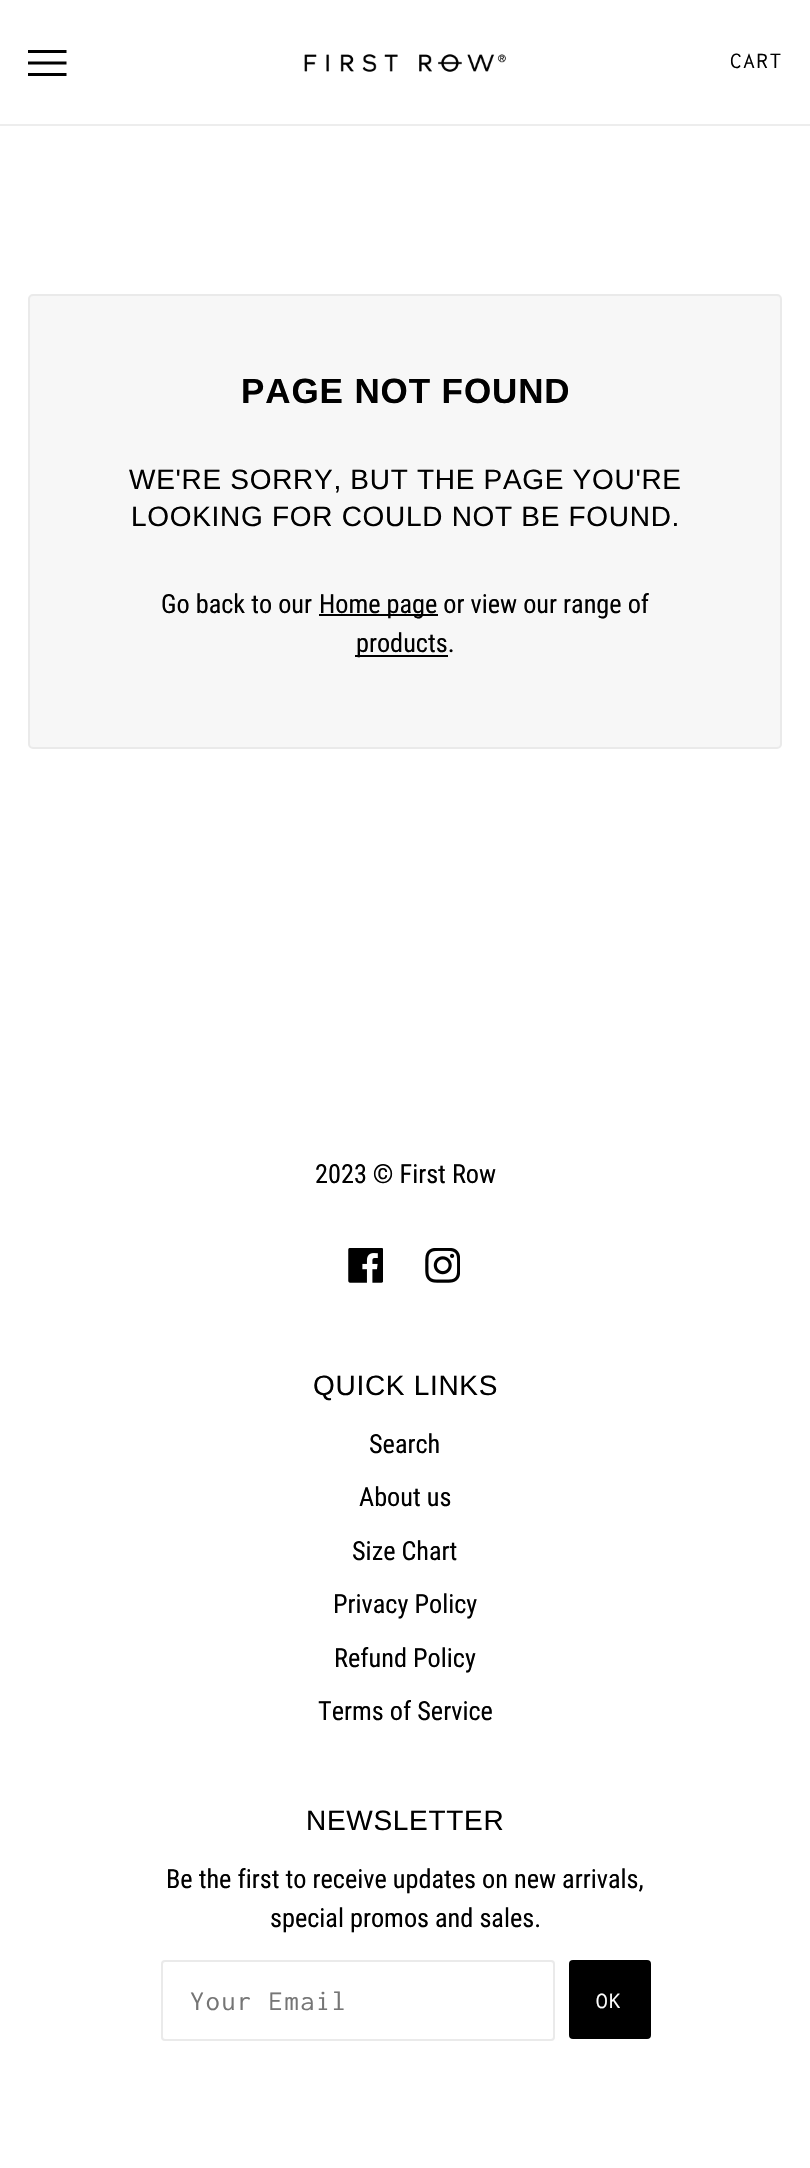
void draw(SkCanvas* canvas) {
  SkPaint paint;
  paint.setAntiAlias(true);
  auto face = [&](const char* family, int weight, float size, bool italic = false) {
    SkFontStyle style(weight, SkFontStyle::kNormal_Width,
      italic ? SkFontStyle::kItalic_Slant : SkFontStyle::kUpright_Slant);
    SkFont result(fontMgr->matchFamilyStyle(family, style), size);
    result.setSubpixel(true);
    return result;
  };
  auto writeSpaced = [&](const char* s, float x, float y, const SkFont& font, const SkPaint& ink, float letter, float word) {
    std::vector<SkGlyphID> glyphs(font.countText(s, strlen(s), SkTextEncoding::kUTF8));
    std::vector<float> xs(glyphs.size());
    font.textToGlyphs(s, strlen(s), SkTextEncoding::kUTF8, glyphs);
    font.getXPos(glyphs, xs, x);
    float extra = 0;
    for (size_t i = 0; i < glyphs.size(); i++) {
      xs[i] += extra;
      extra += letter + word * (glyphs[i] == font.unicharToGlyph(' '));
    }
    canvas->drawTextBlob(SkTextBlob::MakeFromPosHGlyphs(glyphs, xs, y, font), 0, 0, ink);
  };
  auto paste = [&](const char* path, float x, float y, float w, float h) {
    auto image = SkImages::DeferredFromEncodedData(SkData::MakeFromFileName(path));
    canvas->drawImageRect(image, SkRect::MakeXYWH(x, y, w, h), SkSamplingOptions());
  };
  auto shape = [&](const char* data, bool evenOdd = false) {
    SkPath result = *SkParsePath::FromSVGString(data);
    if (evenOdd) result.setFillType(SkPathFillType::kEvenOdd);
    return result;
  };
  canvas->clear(0xffffffff);
  paint.setColor(0xffededed);
  canvas->drawRect(SkRect::MakeXYWH(0, 124, 810, 2), paint);
  paint.setColor(0xff000000);
  canvas->drawPath(shape("M28 53V50H66.5V53ZM28 64.5V61.5H66.5V64.5ZM28 76V73H66.5V76Z"), paint);
  paste("img/1.png", 304, 54, 202, 18);
  paint.setColor(0xfff7f7f7);
  canvas->drawRoundRect(SkRect::MakeXYWH(29, 295, 752, 453), 4, 4, paint);
  paint.setStroke(true);
  paint.setStrokeWidth(2);
  paint.setColor(0xffeaeaea);
  canvas->drawRoundRect(SkRect::MakeXYWH(29, 295, 752, 453), 4, 4, paint);
  paint.setStroke(false);
  paint.setColor(0xff000000);
  canvas->drawRect(SkRect::MakeXYWH(319, 614, 119, 2), paint);
  canvas->drawRect(SkRect::MakeXYWH(355, 655, 93, 2), paint);
  paste("img/2.png", 348, 1248, 35, 35);
  paste("img/3.png", 425, 1248, 35, 35);
  paint.setStroke(true);
  paint.setColor(0xffeaeaea);
  canvas->drawRoundRect(SkRect::MakeXYWH(162, 1961, 392, 79), 3, 3, paint);
  paint.setStroke(false);
  paint.setColor(0xff000000);
  canvas->drawRoundRect(SkRect::MakeXYWH(569, 1960, 82, 79), 4, 4, paint);
  auto f0 = face("Inconsolata", 400, 23);
  writeSpaced("CART", 730, 68, f0, paint, 1.75f, 0);
  auto f1 = face("Liberation Sans", 700, 35);
  writeSpaced("PAGE NOT FOUND", 241, 403, f1, paint, 0.9f, 0);
  auto f2 = face("Liberation Sans", 400, 28);
  writeSpaced("WE'RE SORRY, BUT THE PAGE YOU'RE", 129, 489, f2, paint, 0.7f, 0);
  writeSpaced("LOOKING FOR COULD NOT BE FOUND.", 131, 526, f2, paint, 0.7f, 0);
  auto f3 = face("Roboto Condensed", 400, 26.25f);
  {
    const struct { const char* s; float x, y; } items[] = {
      {"Go back to our", 161, 613},
      {"Home page or view our range of", 319, 613},
      {"products.", 356, 652},
      {"2023 © First Row", 315, 1183},
    };
    for (auto [s, x, y] : items) {
      canvas->drawString(s, x, y, f3, paint);
    }
  }
  writeSpaced("QUICK LINKS", 313, 1395, f2, paint, 0.7f, 0);
  {
    const struct { const char* s; float x, y; } items[] = {
      {"Search", 369, 1453},
      {"About us", 359, 1506},
      {"Size Chart", 352, 1560},
      {"Privacy Policy", 333, 1613},
      {"Refund Policy", 334, 1667},
      {"Terms of Service", 318, 1720},
    };
    for (auto [s, x, y] : items) {
      canvas->drawString(s, x, y, f3, paint);
    }
  }
  writeSpaced("NEWSLETTER", 306, 1830, f2, paint, 0.7f, 0);
  canvas->drawString("Be the first to receive updates on new arrivals,", 166, 1888, f3, paint);
  canvas->drawString("special promos and sales.", 270, 1927, f3, paint);
  auto f4 = face("Inconsolata", 400, 28);
  paint.setColor(0xff757575);
  writeSpaced("Your Email", 190, 2010, f4, paint, 1.75f, 0);
  paint.setColor(0xffffffff);
  writeSpaced("OK", 596, 2008, f0, paint, 1.75f, 0);
}
